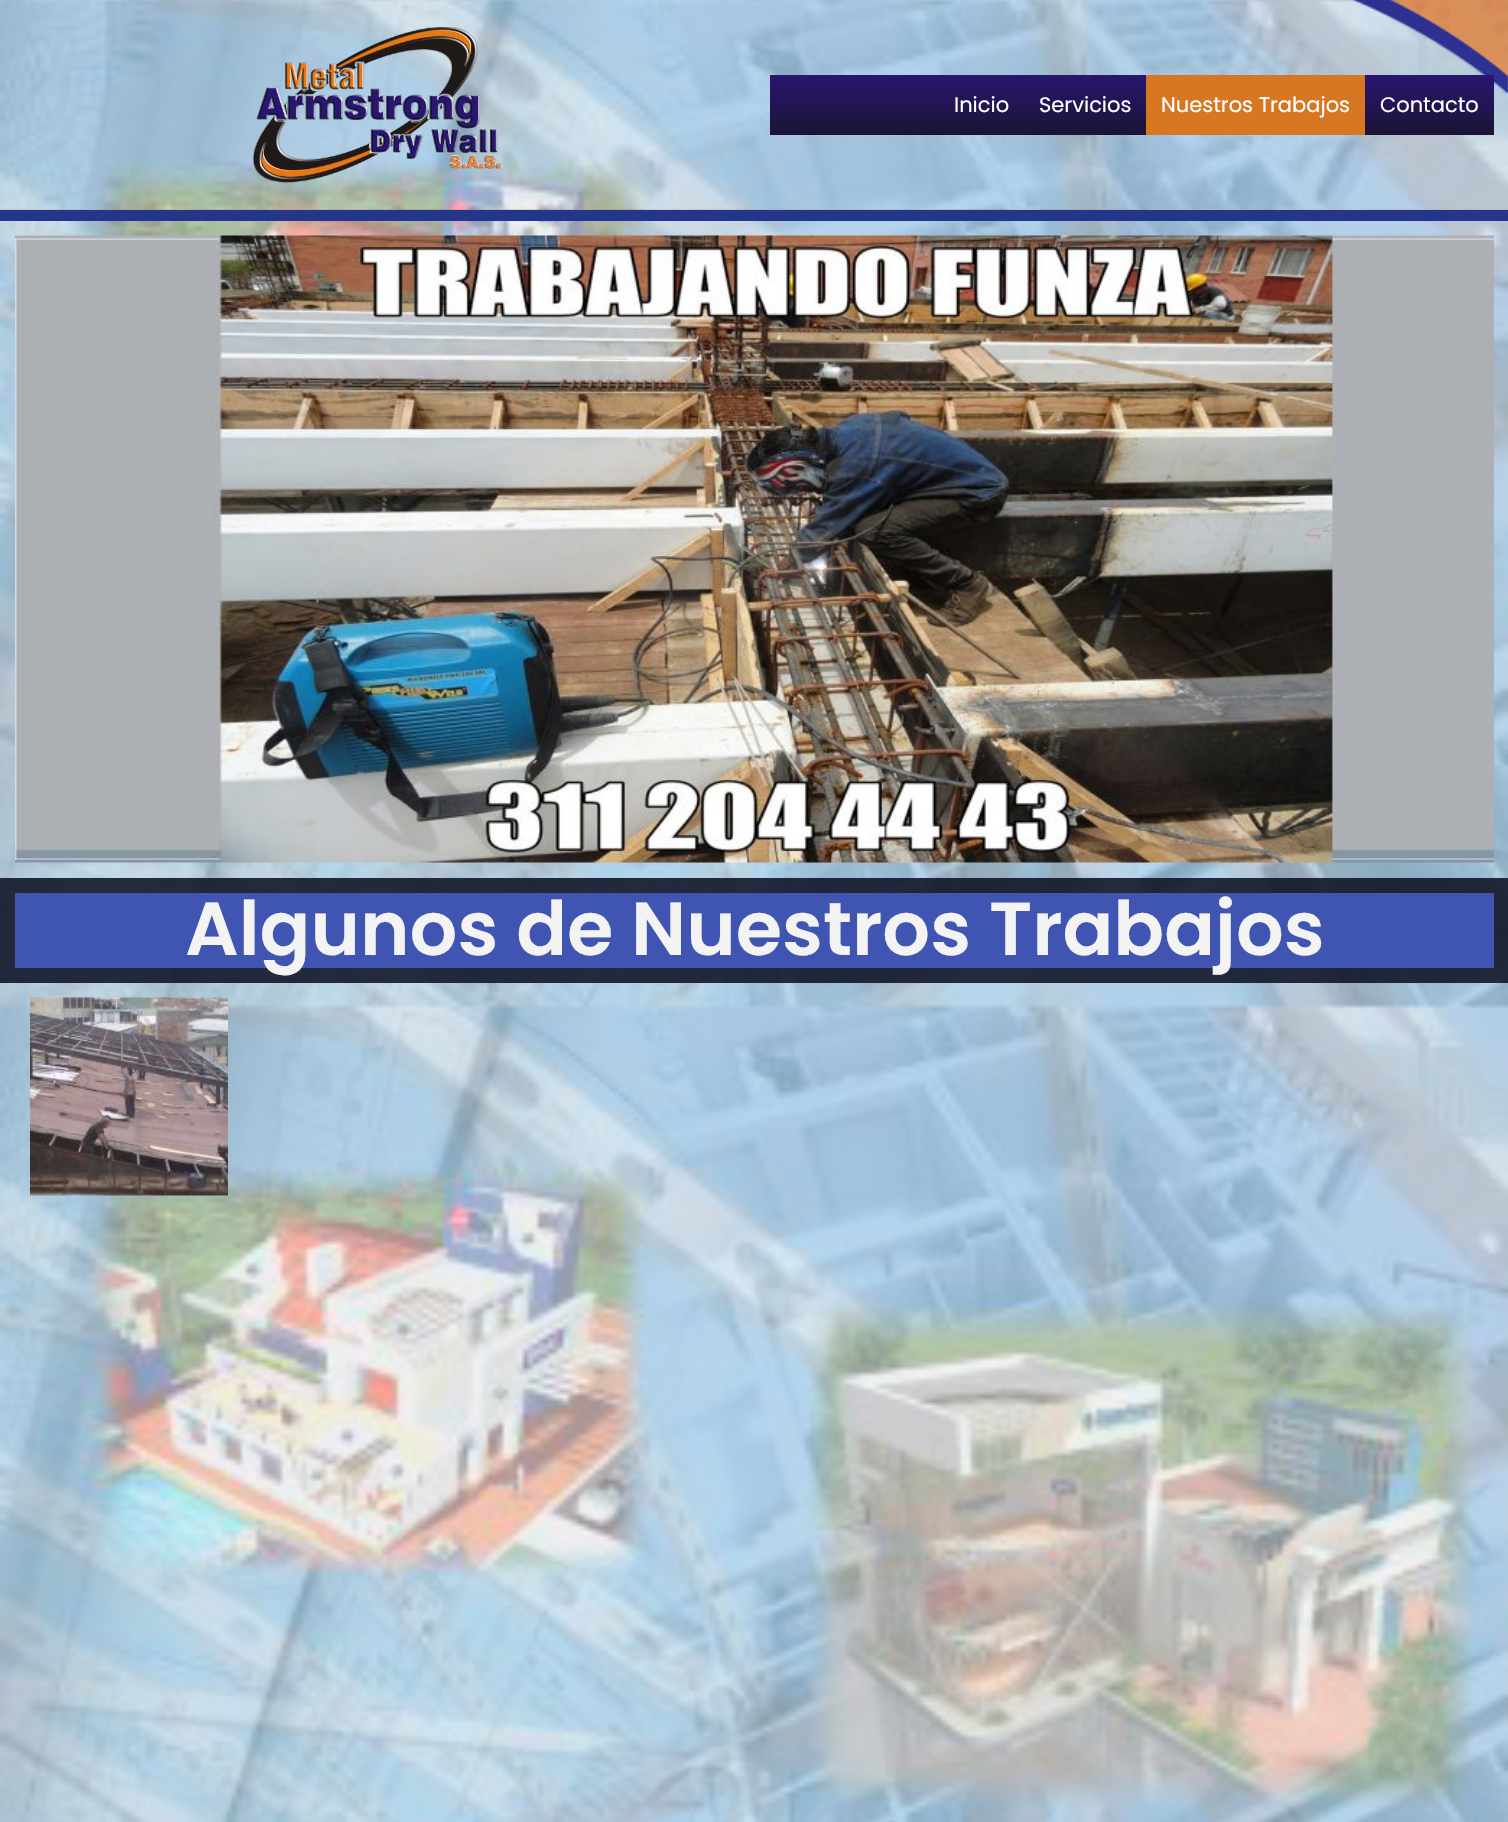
void draw(SkCanvas* canvas) {
  SkPaint paint;
  paint.setAntiAlias(true);
  auto face = [&](const char* family, int weight, float size, bool italic = false) {
    SkFontStyle style(weight, SkFontStyle::kNormal_Width,
      italic ? SkFontStyle::kItalic_Slant : SkFontStyle::kUpright_Slant);
    SkFont result(fontMgr->matchFamilyStyle(family, style), size);
    result.setSubpixel(true);
    return result;
  };
  auto paste = [&](const char* path, float x, float y, float w, float h) {
    auto image = SkImages::DeferredFromEncodedData(SkData::MakeFromFileName(path));
    canvas->drawImageRect(image, SkRect::MakeXYWH(x, y, w, h), SkSamplingOptions());
  };
  canvas->clear(0xffffffff);
  paste("img/1.png", 0, 0, 1508, 1822);
  paste("img/2.png", 0, 0, 1508, 210);
  paint.setColor(0xff24368a);
  canvas->drawRect(SkRect::MakeXYWH(0, 210, 1508, 11), paint);
  paste("img/3.png", 253, 27, 248, 156);
  {
    const SkColor colors[] = {0xff29166f, 0xff1b1435};
    const float stops[] = {0, 1};
    const SkPoint ends[] = {{1132, 75}, {1132, 135}};
    paint.setShader(SkGradientShader::MakeLinear(ends, colors, stops, 2, SkTileMode::kClamp));
    paint.setAlpha(255);
  }
  canvas->drawRect(SkRect::MakeXYWH(770, 75, 724, 60), paint);
  paint.setShader(nullptr);
  paint.setColor(0xffd87722);
  canvas->drawRect(SkRect::MakeXYWH(1146, 75, 219, 60), paint);
  paste("img/4.png", 15, 235, 1479, 628);
  paint.setColor(0xde0c1021);
  canvas->drawRect(SkRect::MakeXYWH(0, 878, 1508, 105), paint);
  paint.setColor(0xff4054b2);
  canvas->drawRect(SkRect::MakeXYWH(15, 893, 1479, 75), paint);
  paste("img/5.png", 30, 997, 198, 199);
  auto f0 = face("Poppins", 400, 21);
  paint.setColor(0xffffffff);
  {
    const struct { const char* s; float x, y; } items[] = {
      {"Inicio", 954, 112},
      {"Servicios", 1039, 112},
      {"Nuestros Trabajos", 1161, 112},
      {"Contacto", 1380, 112},
    };
    for (auto [s, x, y] : items) {
      canvas->drawString(s, x, y, f0, paint);
    }
  }
  auto f1 = face("Poppins", 600, 75);
  paint.setColor(0xfff3f3f3);
  canvas->drawString("Algunos de Nuestros Trabajos", 185, 955, f1, paint);
}
